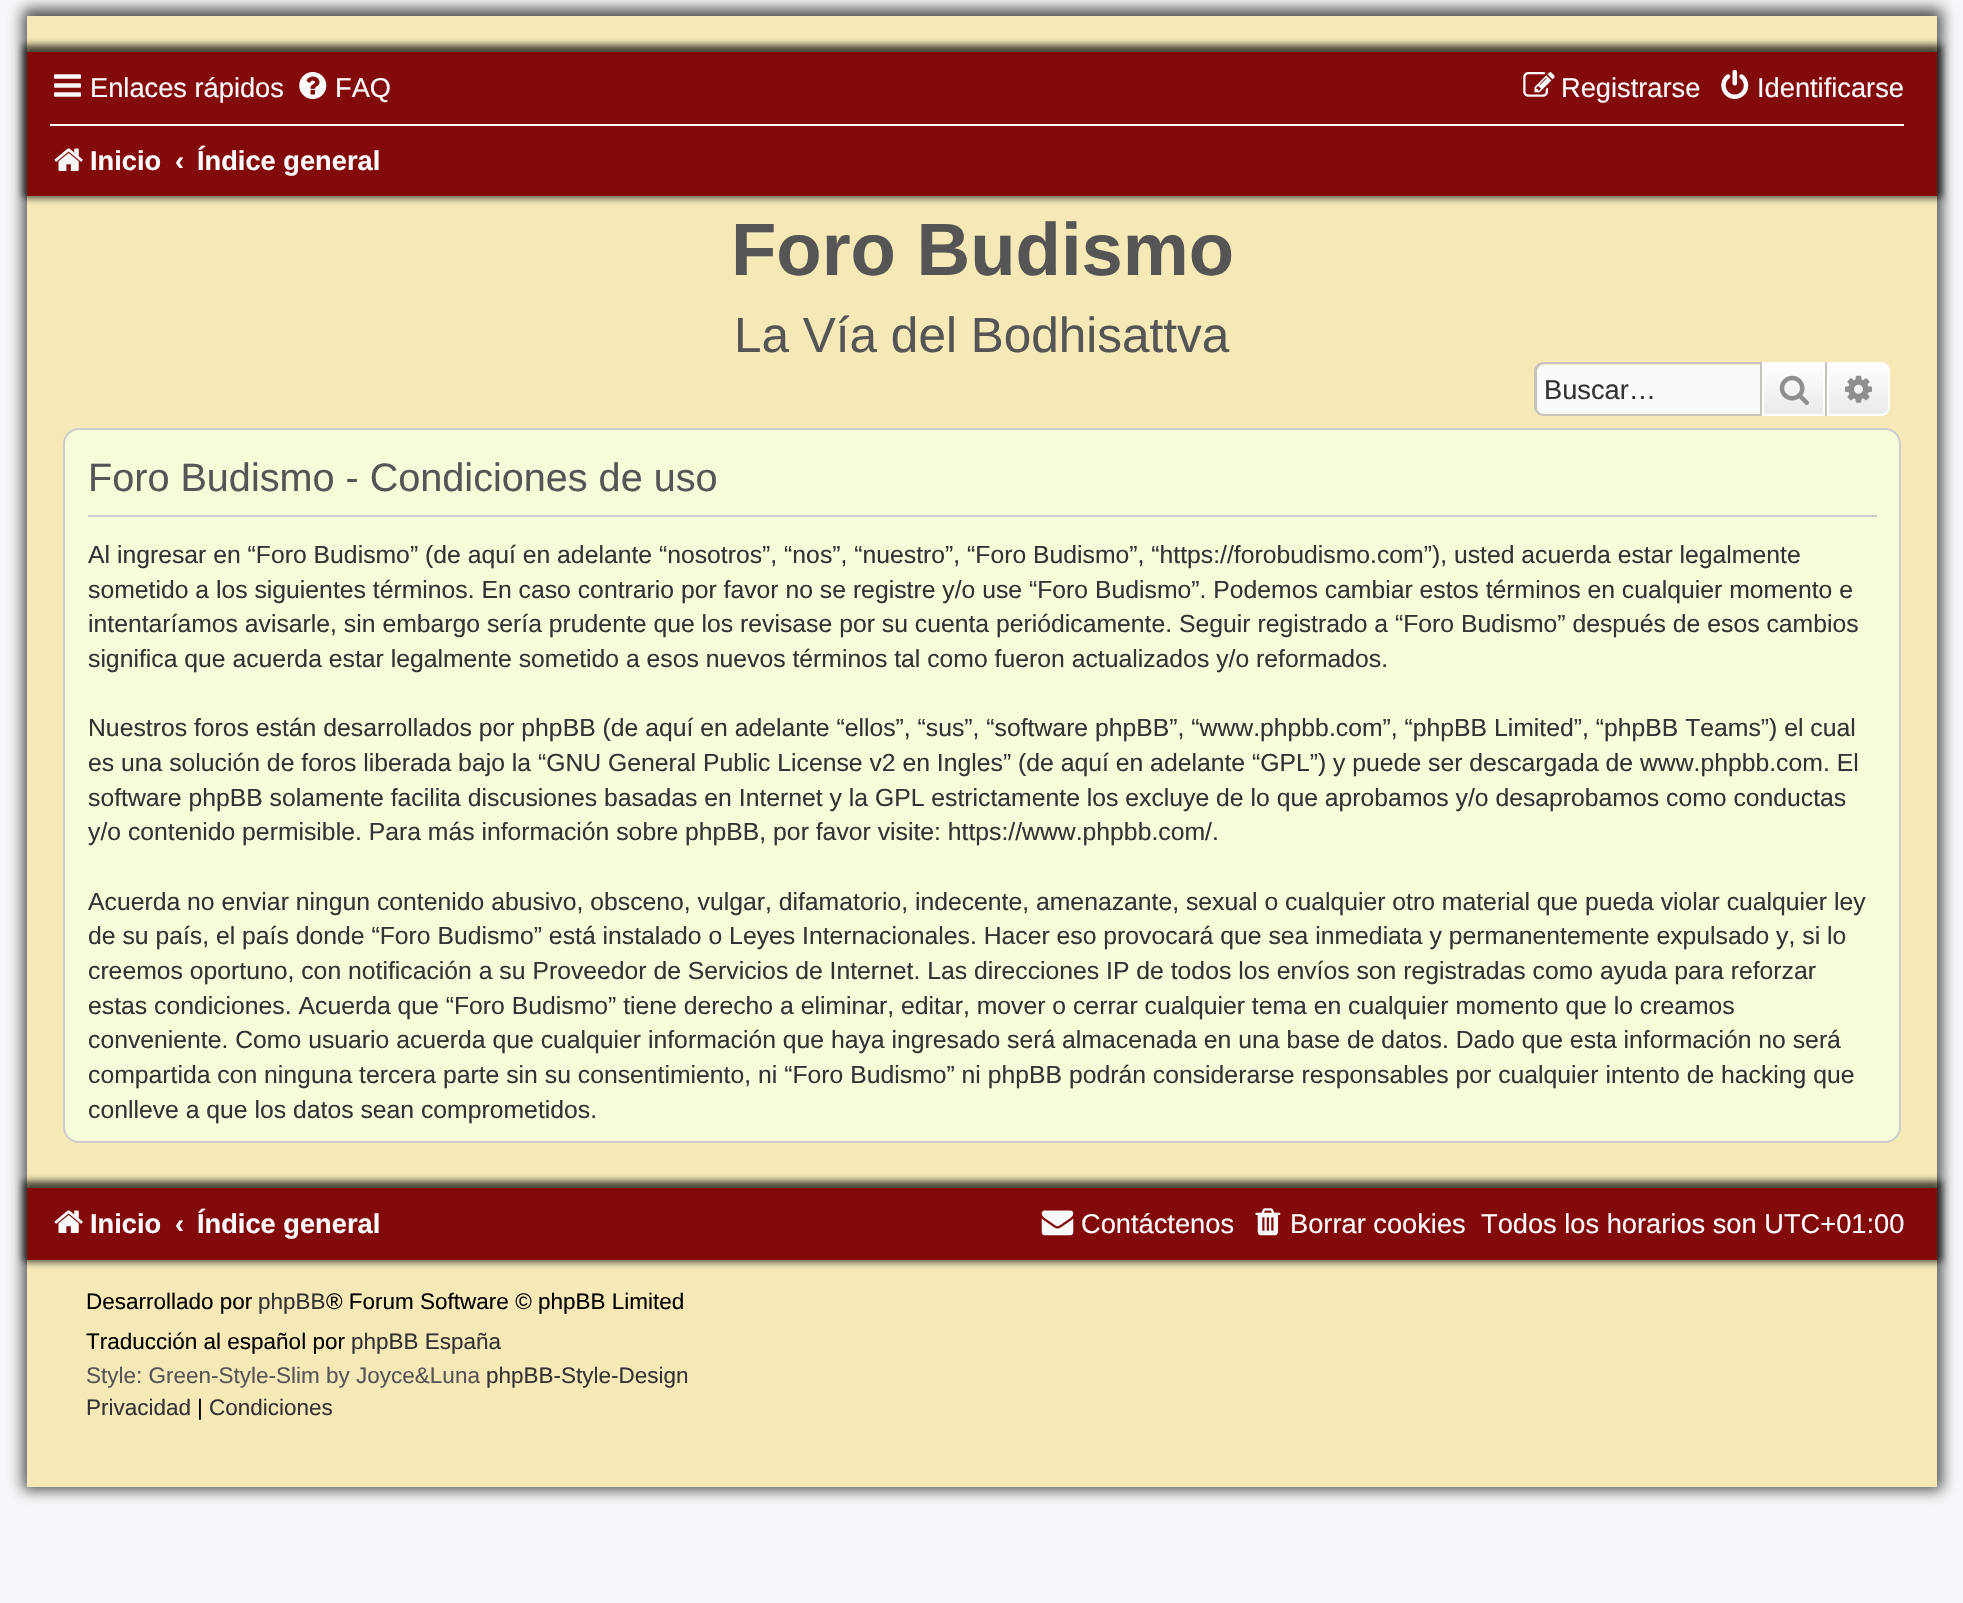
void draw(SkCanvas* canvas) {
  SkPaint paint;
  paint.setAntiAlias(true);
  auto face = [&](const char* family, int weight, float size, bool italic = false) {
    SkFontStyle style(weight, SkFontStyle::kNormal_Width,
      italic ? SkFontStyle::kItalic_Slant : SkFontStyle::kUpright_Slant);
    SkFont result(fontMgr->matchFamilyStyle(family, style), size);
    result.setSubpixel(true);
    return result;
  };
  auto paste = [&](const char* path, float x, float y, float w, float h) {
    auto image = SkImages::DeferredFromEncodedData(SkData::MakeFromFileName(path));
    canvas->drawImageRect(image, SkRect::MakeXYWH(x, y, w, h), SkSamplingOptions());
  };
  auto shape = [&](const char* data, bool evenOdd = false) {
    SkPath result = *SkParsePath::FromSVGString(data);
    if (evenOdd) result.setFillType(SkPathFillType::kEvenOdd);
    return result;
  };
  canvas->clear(0xfff5f7fa);
  paint.setColor(0xb3020202);
  paint.setMaskFilter(SkMaskFilter::MakeBlur(kNormal_SkBlurStyle, 7));
  canvas->drawRect(SkRect::MakeXYWH(23, 9, 1919, 1481), paint);
  paint.setMaskFilter(nullptr);
  paint.setColor(0xfff6e8b7);
  canvas->drawRect(SkRect::MakeXYWH(27, 16, 1910, 1471), paint);
  paint.setColor(0xb3020202);
  paint.setMaskFilter(SkMaskFilter::MakeBlur(kNormal_SkBlurStyle, 3.5f));
  canvas->drawRect(SkRect::MakeXYWH(23, 45, 1919, 153), paint);
  paint.setMaskFilter(nullptr);
  paint.setColor(0xff820a0a);
  canvas->drawRect(SkRect::MakeXYWH(27, 52, 1910, 144), paint);
  paste("img/1.png", 54, 74, 27, 23);
  paste("img/2.png", 299, 72, 28, 27);
  paste("img/3.png", 1523, 72, 32, 25);
  paste("img/4.png", 1721, 69, 28, 30);
  paint.setColor(0xffffffff);
  canvas->drawRect(SkRect::MakeXYWH(50, 124, 1854, 2), paint);
  paste("img/5.png", 54, 148, 29, 23);
  paint.setColor(0xfffafafa);
  canvas->drawPath(shape("M1544 365H1760V414H1544C1540 414 1537 411 1537 407V372C1537 368 1540 365 1544 365Z"), paint);
  paint.setColor(0xffc7c3bf);
  canvas->drawPath(shape("M1544 362H1760V416H1544C1539 416 1534 412 1534 407V371C1534 366 1539 362 1544 362ZM1544 364H1760V414H1544C1540 414 1537 411 1537 407V371C1537 368 1540 364 1544 364Z", true), paint);
  {
    const SkColor colors[] = {0xffffffff, 0xffe9e9e9};
    const float stops[] = {0, 1};
    const SkPoint ends[] = {{1793, 362}, {1793, 416}};
    paint.setShader(SkGradientShader::MakeLinear(ends, colors, stops, 2, SkTileMode::kClamp));
    paint.setAlpha(255);
  }
  canvas->drawRect(SkRect::MakeXYWH(1764, 364, 59, 50), paint);
  paint.setStroke(true);
  paint.setStrokeWidth(2);
  paint.setShader(nullptr);
  paint.setColor(0xffffffff);
  canvas->drawRect(SkRect::MakeXYWH(1763, 363, 61, 52), paint);
  paint.setStroke(false);
  paint.setColor(0xffc7c3bf);
  canvas->drawRect(SkRect::MakeXYWH(1825, 362, 2, 54), paint);
  canvas->drawRect(SkRect::MakeXYWH(1760, 362, 2, 54), paint);
  paste("img/6.png", 1779, 375, 30, 30);
  {
    const SkColor colors[] = {0xffffffff, 0xffe9e9e9};
    const float stops[] = {0, 1};
    const SkPoint ends[] = {{1859, 362}, {1859, 416}};
    paint.setShader(SkGradientShader::MakeLinear(ends, colors, stops, 2, SkTileMode::kClamp));
    paint.setAlpha(255);
  }
  canvas->drawPath(shape("M1828 363H1881C1885.5 363 1889 366.5 1889 371V407C1889 411.5 1885.5 415 1881 415H1828Z"), paint);
  paint.setStroke(true);
  paint.setShader(nullptr);
  paint.setColor(0xffffffff);
  canvas->drawPath(shape("M1828 363H1881C1885.5 363 1889 366.5 1889 371V407C1889 411.5 1885.5 415 1881 415H1828Z"), paint);
  paste("img/7.png", 1845, 375, 27, 28);
  paint.setStroke(false);
  paint.setColor(0xfff6fbda);
  canvas->drawRoundRect(SkRect::MakeXYWH(64, 429, 1836, 713), 15, 15, paint);
  paint.setStroke(true);
  paint.setColor(0xffcccccc);
  canvas->drawRoundRect(SkRect::MakeXYWH(64, 429, 1836, 713), 15, 15, paint);
  paint.setStroke(false);
  canvas->drawRect(SkRect::MakeXYWH(88, 515, 1789, 2), paint);
  paint.setColor(0xb3020202);
  paint.setMaskFilter(SkMaskFilter::MakeBlur(kNormal_SkBlurStyle, 3.5f));
  canvas->drawRect(SkRect::MakeXYWH(23, 1181, 1919, 81), paint);
  paint.setMaskFilter(nullptr);
  paint.setColor(0xff820a0a);
  canvas->drawRect(SkRect::MakeXYWH(27, 1188, 1910, 72), paint);
  paste("img/5.png", 54, 1210, 29, 23);
  paste("img/8.png", 1041, 1210, 33, 26);
  paste("img/9.png", 1255, 1208, 26, 28);
  auto f0 = face("Liberation Sans", 400, 27.25f);
  paint.setColor(0xfffafafa);
  {
    const struct { const char* s; float x, y; } items[] = {
      {"Enlaces rápidos", 90, 97},
      {"FAQ", 335, 97},
      {"Registrarse", 1561, 97},
      {"Identificarse", 1757, 97},
    };
    for (auto [s, x, y] : items) {
      canvas->drawString(s, x, y, f0, paint);
    }
  }
  auto f1 = face("Liberation Sans", 700, 27.25f);
  {
    const struct { const char* s; float x, y; } items[] = {
      {"Inicio", 90, 170},
      {"‹", 175, 170},
      {"Índice general", 197, 170},
    };
    for (auto [s, x, y] : items) {
      canvas->drawString(s, x, y, f1, paint);
    }
  }
  auto f2 = face("Liberation Sans", 700, 74.25f);
  paint.setColor(0xff555555);
  canvas->drawString("Foro Budismo", 731, 275, f2, paint);
  auto f3 = face("Liberation Sans", 400, 49.5f);
  canvas->drawString("La Vía del Bodhisattva", 734, 352, f3, paint);
  paint.setColor(0xff333333);
  canvas->drawString("Buscar…", 1544, 399, f0, paint);
  auto f4 = face("Liberation Sans", 400, 39.6f);
  paint.setColor(0xff555555);
  canvas->drawString("Foro Budismo - Condiciones de uso", 88, 491, f4, paint);
  auto f5 = face("Liberation Sans", 400, 24.75f);
  paint.setColor(0xff333333);
  {
    const struct { const char* s; float x, y; } items[] = {
      {"Al ingresar en “Foro Budismo” (de aquí en adelante “nosotros”, “nos”, “nuestro”, “Foro Budismo”, “https://forobudismo.com”), usted acuerda estar legalmente", 88, 563},
      {"sometido a los siguientes términos. En caso contrario por favor no se registre y/o use “Foro Budismo”. Podemos cambiar estos términos en cualquier momento e", 88, 598},
      {"intentaríamos avisarle, sin embargo sería prudente que los revisase por su cuenta periódicamente. Seguir registrado a “Foro Budismo” después de esos cambios", 88, 632},
      {"significa que acuerda estar legalmente sometido a esos nuevos términos tal como fueron actualizados y/o reformados.", 88, 667},
      {"Nuestros foros están desarrollados por phpBB (de aquí en adelante “ellos”, “sus”, “software phpBB”, “www.phpbb.com”, “phpBB Limited”, “phpBB Teams”) el cual", 88, 736},
      {"es una solución de foros liberada bajo la “GNU General Public License v2 en Ingles” (de aquí en adelante “GPL”) y puede ser descargada de www.phpbb.com. El", 88, 771},
      {"software phpBB solamente facilita discusiones basadas en Internet y la GPL estrictamente los excluye de lo que aprobamos y/o desaprobamos como conductas", 88, 806},
      {"y/o contenido permisible. Para más información sobre phpBB, por favor visite: https://www.phpbb.com/.", 88, 840},
      {"Acuerda no enviar ningun contenido abusivo, obsceno, vulgar, difamatorio, indecente, amenazante, sexual o cualquier otro material que pueda violar cualquier ley", 88, 910},
      {"de su país, el país donde “Foro Budismo” está instalado o Leyes Internacionales. Hacer eso provocará que sea inmediata y permanentemente expulsado y, si lo", 88, 944},
      {"creemos oportuno, con notificación a su Proveedor de Servicios de Internet. Las direcciones IP de todos los envíos son registradas como ayuda para reforzar", 88, 979},
      {"estas condiciones. Acuerda que “Foro Budismo” tiene derecho a eliminar, editar, mover o cerrar cualquier tema en cualquier momento que lo creamos", 88, 1014},
      {"conveniente. Como usuario acuerda que cualquier información que haya ingresado será almacenada en una base de datos. Dado que esta información no será", 88, 1048},
      {"compartida con ninguna tercera parte sin su consentimiento, ni “Foro Budismo” ni phpBB podrán considerarse responsables por cualquier intento de hacking que", 88, 1083},
      {"conlleve a que los datos sean comprometidos.", 88, 1118},
    };
    for (auto [s, x, y] : items) {
      canvas->drawString(s, x, y, f5, paint);
    }
  }
  paint.setColor(0xfffafafa);
  {
    const struct { const char* s; float x, y; } items[] = {
      {"Inicio", 90, 1233},
      {"‹", 175, 1233},
      {"Índice general", 197, 1233},
    };
    for (auto [s, x, y] : items) {
      canvas->drawString(s, x, y, f1, paint);
    }
  }
  {
    const struct { const char* s; float x, y; } items[] = {
      {"Contáctenos", 1081, 1233},
      {"Borrar cookies", 1290, 1233},
      {"Todos los horarios son UTC+01:00", 1481, 1233},
    };
    for (auto [s, x, y] : items) {
      canvas->drawString(s, x, y, f0, paint);
    }
  }
  auto f6 = face("Liberation Sans", 400, 22.5f);
  paint.setColor(0xff000000);
  canvas->drawString("Desarrollado por", 86, 1309, f6, paint);
  paint.setColor(0xff333333);
  canvas->drawString("phpBB", 258, 1309, f6, paint);
  paint.setColor(0xff000000);
  canvas->drawString("® Forum Software © phpBB Limited", 326, 1309, f6, paint);
  canvas->drawString("Traducción al español por", 86, 1349, f6, paint);
  paint.setColor(0xff333333);
  canvas->drawString("phpBB España", 351, 1349, f6, paint);
  paint.setColor(0xff555555);
  canvas->drawString("Style: Green-Style-Slim by Joyce&Luna", 86, 1383, f6, paint);
  paint.setColor(0xff333333);
  canvas->drawString("phpBB-Style-Design", 486, 1383, f6, paint);
  canvas->drawString("Privacidad", 86, 1415, f6, paint);
  paint.setColor(0xff000000);
  canvas->drawString("|", 197, 1415, f6, paint);
  paint.setColor(0xff333333);
  canvas->drawString("Condiciones", 209, 1415, f6, paint);
}
